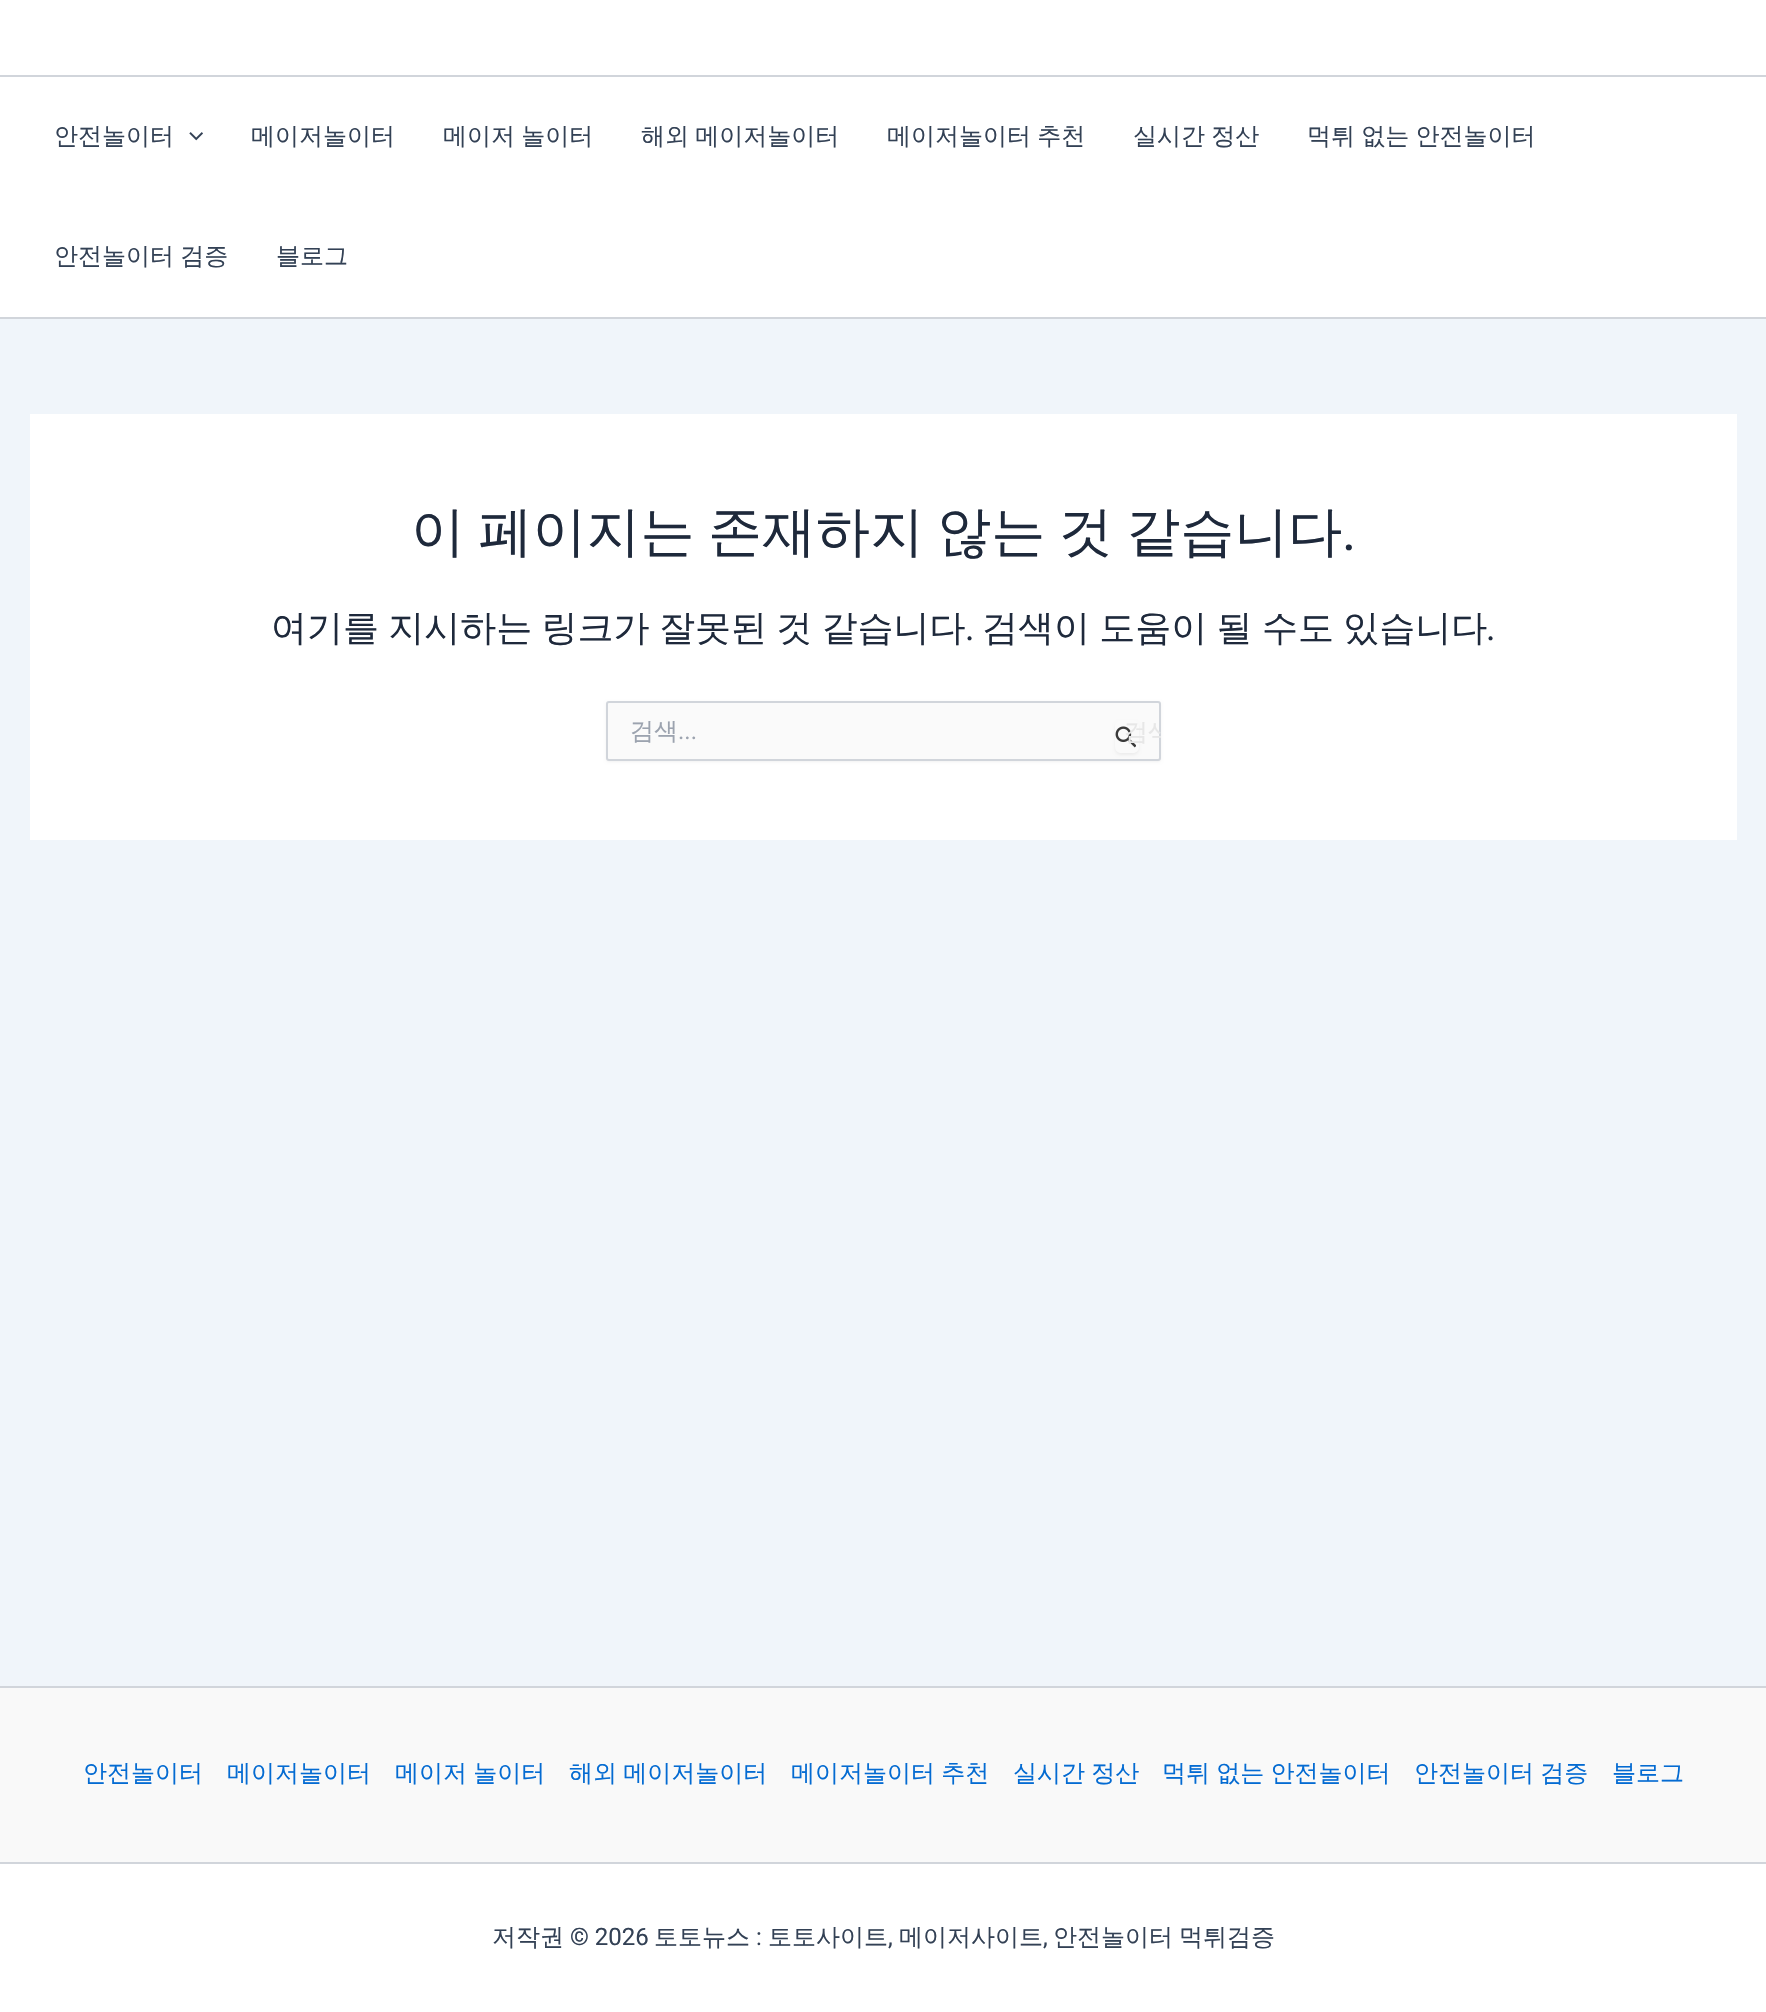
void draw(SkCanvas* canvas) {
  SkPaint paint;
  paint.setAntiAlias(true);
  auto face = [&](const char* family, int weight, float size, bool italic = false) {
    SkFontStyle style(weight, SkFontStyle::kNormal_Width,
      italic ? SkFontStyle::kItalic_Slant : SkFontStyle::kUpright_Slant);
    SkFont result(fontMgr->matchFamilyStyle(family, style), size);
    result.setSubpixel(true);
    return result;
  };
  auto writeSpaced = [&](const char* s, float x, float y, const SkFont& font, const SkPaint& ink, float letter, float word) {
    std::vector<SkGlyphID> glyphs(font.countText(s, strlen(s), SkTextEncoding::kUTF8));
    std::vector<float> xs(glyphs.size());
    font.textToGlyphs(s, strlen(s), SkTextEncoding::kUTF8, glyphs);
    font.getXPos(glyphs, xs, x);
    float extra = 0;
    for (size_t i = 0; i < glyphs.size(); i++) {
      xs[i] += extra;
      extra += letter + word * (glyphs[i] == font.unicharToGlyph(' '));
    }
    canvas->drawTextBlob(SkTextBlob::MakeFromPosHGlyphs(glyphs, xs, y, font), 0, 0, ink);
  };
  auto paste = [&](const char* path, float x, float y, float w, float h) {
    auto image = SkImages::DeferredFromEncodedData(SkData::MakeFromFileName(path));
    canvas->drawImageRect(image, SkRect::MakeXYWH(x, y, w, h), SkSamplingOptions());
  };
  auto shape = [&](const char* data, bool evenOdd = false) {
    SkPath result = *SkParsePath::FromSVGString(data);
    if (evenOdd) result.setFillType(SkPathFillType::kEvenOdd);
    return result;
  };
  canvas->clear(0xfff0f5fa);
  {
    const struct { float x, y, w, h; SkColor color; } items[] = {
      {0, 0, 1766, 75, 0xffffffff},
      {0, 75, 1766, 2, 0xffd1d5db},
      {0, 77, 1766, 240, 0xffffffff},
      {0, 317, 1766, 2, 0xffd1d5db},
    };
    for (auto [x, y, w, h, color] : items) {
      paint.setColor(color);
      canvas->drawRect(SkRect::MakeXYWH(x, y, w, h), paint);
    }
  }
  paste("img/1.png", 189, 132, 14, 9);
  paint.setColor(0xffffffff);
  canvas->drawRect(SkRect::MakeXYWH(30, 414, 1707, 426), paint);
  paint.setColor(0x0d000000);
  paint.setMaskFilter(SkMaskFilter::MakeBlur(kNormal_SkBlurStyle, 1.5f));
  canvas->drawRoundRect(SkRect::MakeXYWH(606, 702, 555, 60), 3, 3, paint);
  paint.setMaskFilter(nullptr);
  paint.setColor(0xfffafafa);
  canvas->drawRoundRect(SkRect::MakeXYWH(607, 702, 553, 58), 2, 2, paint);
  paint.setStroke(true);
  paint.setStrokeWidth(2);
  paint.setColor(0xffd1d5db);
  canvas->drawRoundRect(SkRect::MakeXYWH(607, 702, 553, 58), 2, 2, paint);
  canvas->save();
  canvas->clipPath(shape("M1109 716H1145V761H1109ZM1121 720H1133C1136.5 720 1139 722.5 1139 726V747C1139 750.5 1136.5 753 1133 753H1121C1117.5 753 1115 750.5 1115 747V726C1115 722.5 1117.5 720 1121 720Z", true), true);
  paint.setStroke(false);
  paint.setColor(0x0d000000);
  paint.setMaskFilter(SkMaskFilter::MakeBlur(kNormal_SkBlurStyle, 1.5f));
  canvas->drawRoundRect(SkRect::MakeXYWH(1115, 722, 24, 33), 6, 6, paint);
  paint.setMaskFilter(nullptr);
  canvas->restore();
  paste("img/2.png", 1115, 726, 21, 22);
  {
    const struct { float x, y, w, h; SkColor color; } items[] = {
      {0, 1688, 1766, 174, 0xfff9f9f9},
      {0, 1686, 1766, 2, 0xffd1d5db},
      {0, 1864, 1766, 148, 0xffffffff},
      {0, 1862, 1766, 2, 0xffd1d5db},
    };
    for (auto [x, y, w, h, color] : items) {
      paint.setColor(color);
      canvas->drawRect(SkRect::MakeXYWH(x, y, w, h), paint);
    }
  }
  auto f0 = face("WenQuanYi Zen Hei", 500, 24);
  paint.setColor(0xff334155);
  canvas->drawString("안전놀이터", 54, 144, f0, paint);
  canvas->drawString("메이저놀이터", 251, 144, f0, paint);
  {
    const struct { const char* s; float x, y; } items[] = {
      {"메이저 놀이터", 443, 144},
      {"해외 메이저놀이터", 641, 144},
      {"메이저놀이터 추천", 887, 144},
      {"실시간 정산", 1133, 144},
      {"먹튀 없는 안전놀이터", 1307, 144},
      {"안전놀이터 검증", 54, 264},
    };
    for (auto [s, x, y] : items) {
      writeSpaced(s, x, y, f0, paint, 0, -1);
    }
  }
  canvas->drawString("블로그", 276, 264, f0, paint);
  auto f1 = face("WenQuanYi Zen Hei", 500, 54);
  paint.setColor(0xff1e293b);
  writeSpaced("이 페이지는 존재하지 않는 것 같습니다", 411, 550, f1, paint, 0, -2.75f);
  auto f2 = face("Roboto", 400, 54);
  canvas->drawString(".", 1342, 550, f2, paint);
  auto f3 = face("WenQuanYi Zen Hei", 500, 36);
  writeSpaced("여기를 지시하는 링크가 잘못된 것 같습니다", 271, 640, f3, paint, 0, -1.5f);
  auto f4 = face("Roboto", 400, 36);
  canvas->drawString(".", 965, 640, f4, paint);
  writeSpaced("검색이 도움이 될 수도 있습니다", 982, 640, f3, paint, 0, -1.5f);
  canvas->drawString(".", 1486, 640, f4, paint);
  paint.setColor(0xff9ca3af);
  canvas->drawString("검색", 630, 739, f0, paint);
  auto f5 = face("Roboto", 400, 24);
  canvas->drawString("...", 678, 739, f5, paint);
  canvas->save();
  canvas->clipPath(shape("M1097 701H1158C1159.5 701 1161 702.5 1161 704V761C1161 762.5 1159.5 764 1158 764H1097C1095.5 764 1094 762.5 1094 761V704C1094 702.5 1095.5 701 1097 701Z"), true);
  paint.setColor(0xffe7e7e7);
  canvas->drawString("검색", 1124, 740, f0, paint);
  canvas->restore();
  paint.setColor(0xff046bd2);
  canvas->drawString("안전놀이터", 83, 1781, f0, paint);
  canvas->drawString("메이저놀이터", 227, 1781, f0, paint);
  {
    const struct { const char* s; float x, y; } items[] = {
      {"메이저 놀이터", 395, 1781},
      {"해외 메이저놀이터", 569, 1781},
      {"메이저놀이터 추천", 791, 1781},
      {"실시간 정산", 1013, 1781},
      {"먹튀 없는 안전놀이터", 1162, 1781},
      {"안전놀이터 검증", 1414, 1781},
    };
    for (auto [s, x, y] : items) {
      writeSpaced(s, x, y, f0, paint, 0, -1);
    }
  }
  canvas->drawString("블로그", 1612, 1781, f0, paint);
  paint.setColor(0xff334155);
  canvas->drawString("저작권", 492, 1945, f0, paint);
  canvas->drawString("© 2026", 570, 1945, f5, paint);
  canvas->drawString("토토뉴스", 654, 1945, f0, paint);
  canvas->drawString(":", 756, 1945, f5, paint);
  canvas->drawString("토토사이트", 768, 1945, f0, paint);
  canvas->drawString(",", 888, 1945, f5, paint);
  canvas->drawString("메이저사이트", 899, 1945, f0, paint);
  canvas->drawString(",", 1043, 1945, f5, paint);
  canvas->drawString("안전놀이터", 1053, 1945, f0, paint);
  canvas->drawString("먹튀검증", 1179, 1945, f0, paint);
}
